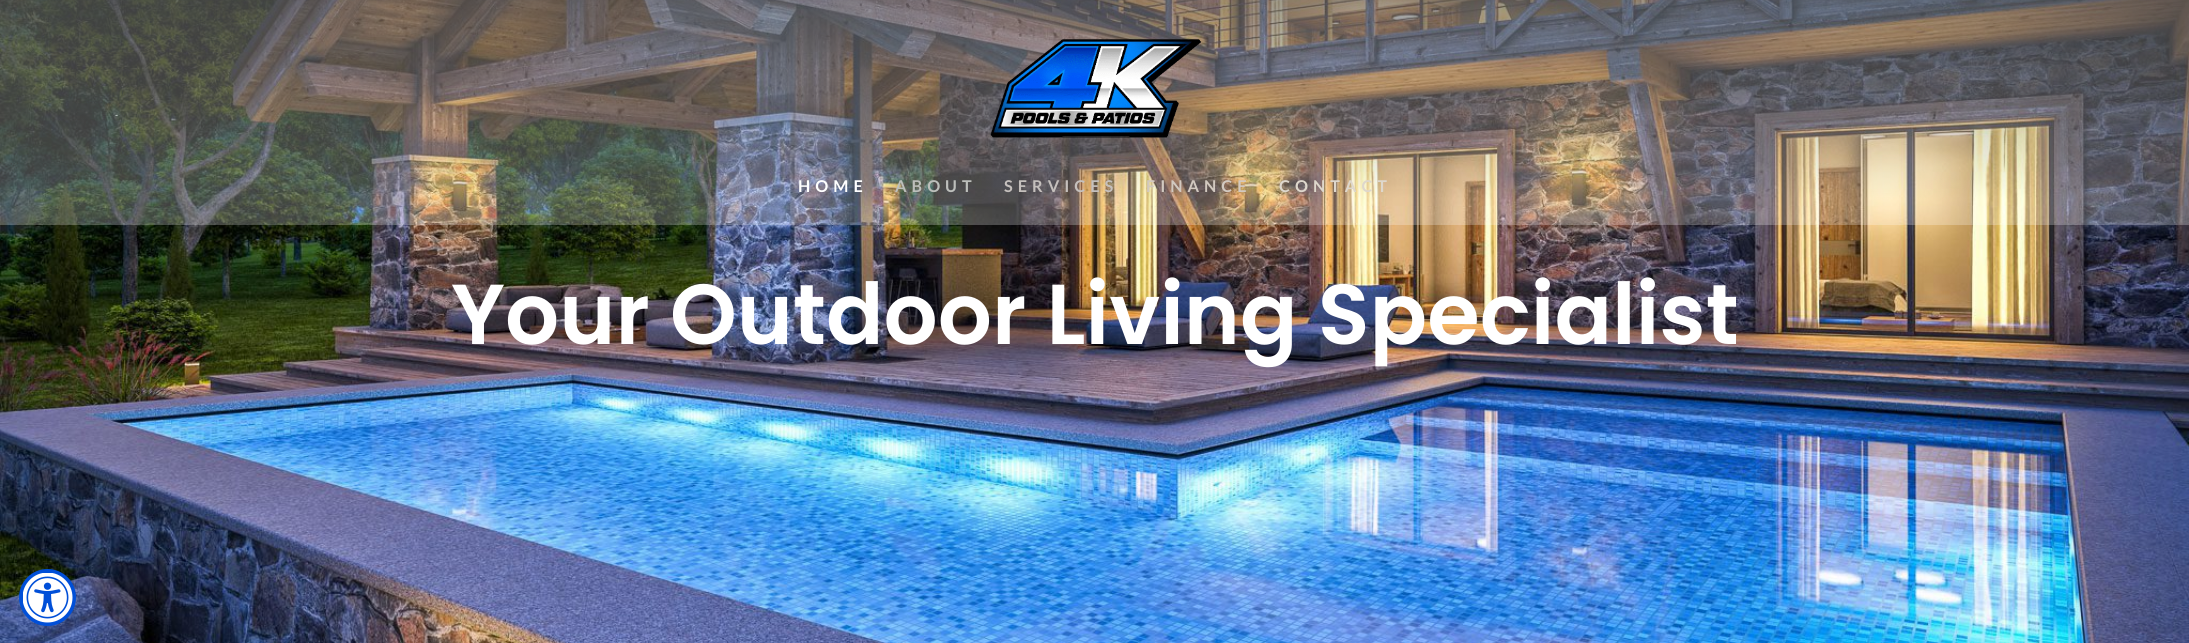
import math
import cairocffi as cairo

surface = cairo.ImageSurface(cairo.FORMAT_RGB24, 2189, 643)
ctx = cairo.Context(surface)
options = cairo.FontOptions()
options.set_hint_metrics(cairo.HINT_METRICS_OFF)
options.set_hint_style(cairo.HINT_STYLE_NONE)
ctx.set_font_options(options)
ctx.set_miter_limit(4)


def rgb(r, g, b):
    ctx.set_source_rgb(r / 255, g / 255, b / 255)


def face(family, size, italic, bold):
    ctx.select_font_face(family, cairo.FONT_SLANT_ITALIC if italic else cairo.FONT_SLANT_NORMAL, cairo.FONT_WEIGHT_BOLD if bold else cairo.FONT_WEIGHT_NORMAL)
    ctx.set_font_size(size)


def label(x, y, s):
    ctx.move_to(x, y)
    ctx.show_text(s)


def tracked(x, y, s, letter, word):
    ctx.move_to(x, y)
    for ch in s:
        ctx.show_text(ch)
        ctx.rel_move_to(letter + word * (ch == ' '), 0)


def rect(x, y, w, h):
    ctx.rectangle(x, y, w, h)
    ctx.fill()


def image(path, x, y, w, h):
    ctx.save()
    ctx.set_source_surface(cairo.ImageSurface.create_from_png(path), x, y)
    ctx.rectangle(x, y, w, h)
    ctx.fill()
    ctx.restore()


rgb(255, 255, 255)
ctx.paint()
image('image1.png', 0, 0, 2189, 643)
ctx.set_source_rgba(1, 1, 1, 0.25)
rect(0, 0, 2189, 225)
image('image0.png', 990, 39, 211, 99)
face('Lato', 16.25, 0, 1)
rgb(255, 255, 255)
tracked(798, 192, 'HOME', 5, 0)
rgb(189, 191, 187)
tracked(895, 192, 'ABOUT', 5, 0)
rgb(197, 192, 189)
tracked(1004, 192, 'SERVICES', 5, 0)
rgb(210, 201, 192)
tracked(1146, 192, 'FINANCE', 5, 0)
rgb(222, 215, 204)
tracked(1279, 192, 'CONTACT', 5, 0)
face('Poppins SemiBold', 85, 0, 0)
rgb(255, 255, 255)
label(451, 344, 'Your Outdoor Living Specialist')
rgb(0, 79, 216)
ctx.new_path()
ctx.arc(47.5, 597.5, 28.5, 0, 2 * math.pi)
ctx.fill()
image('image2.png', 23, 573, 50, 50)
surface.write_to_png('render.png')
